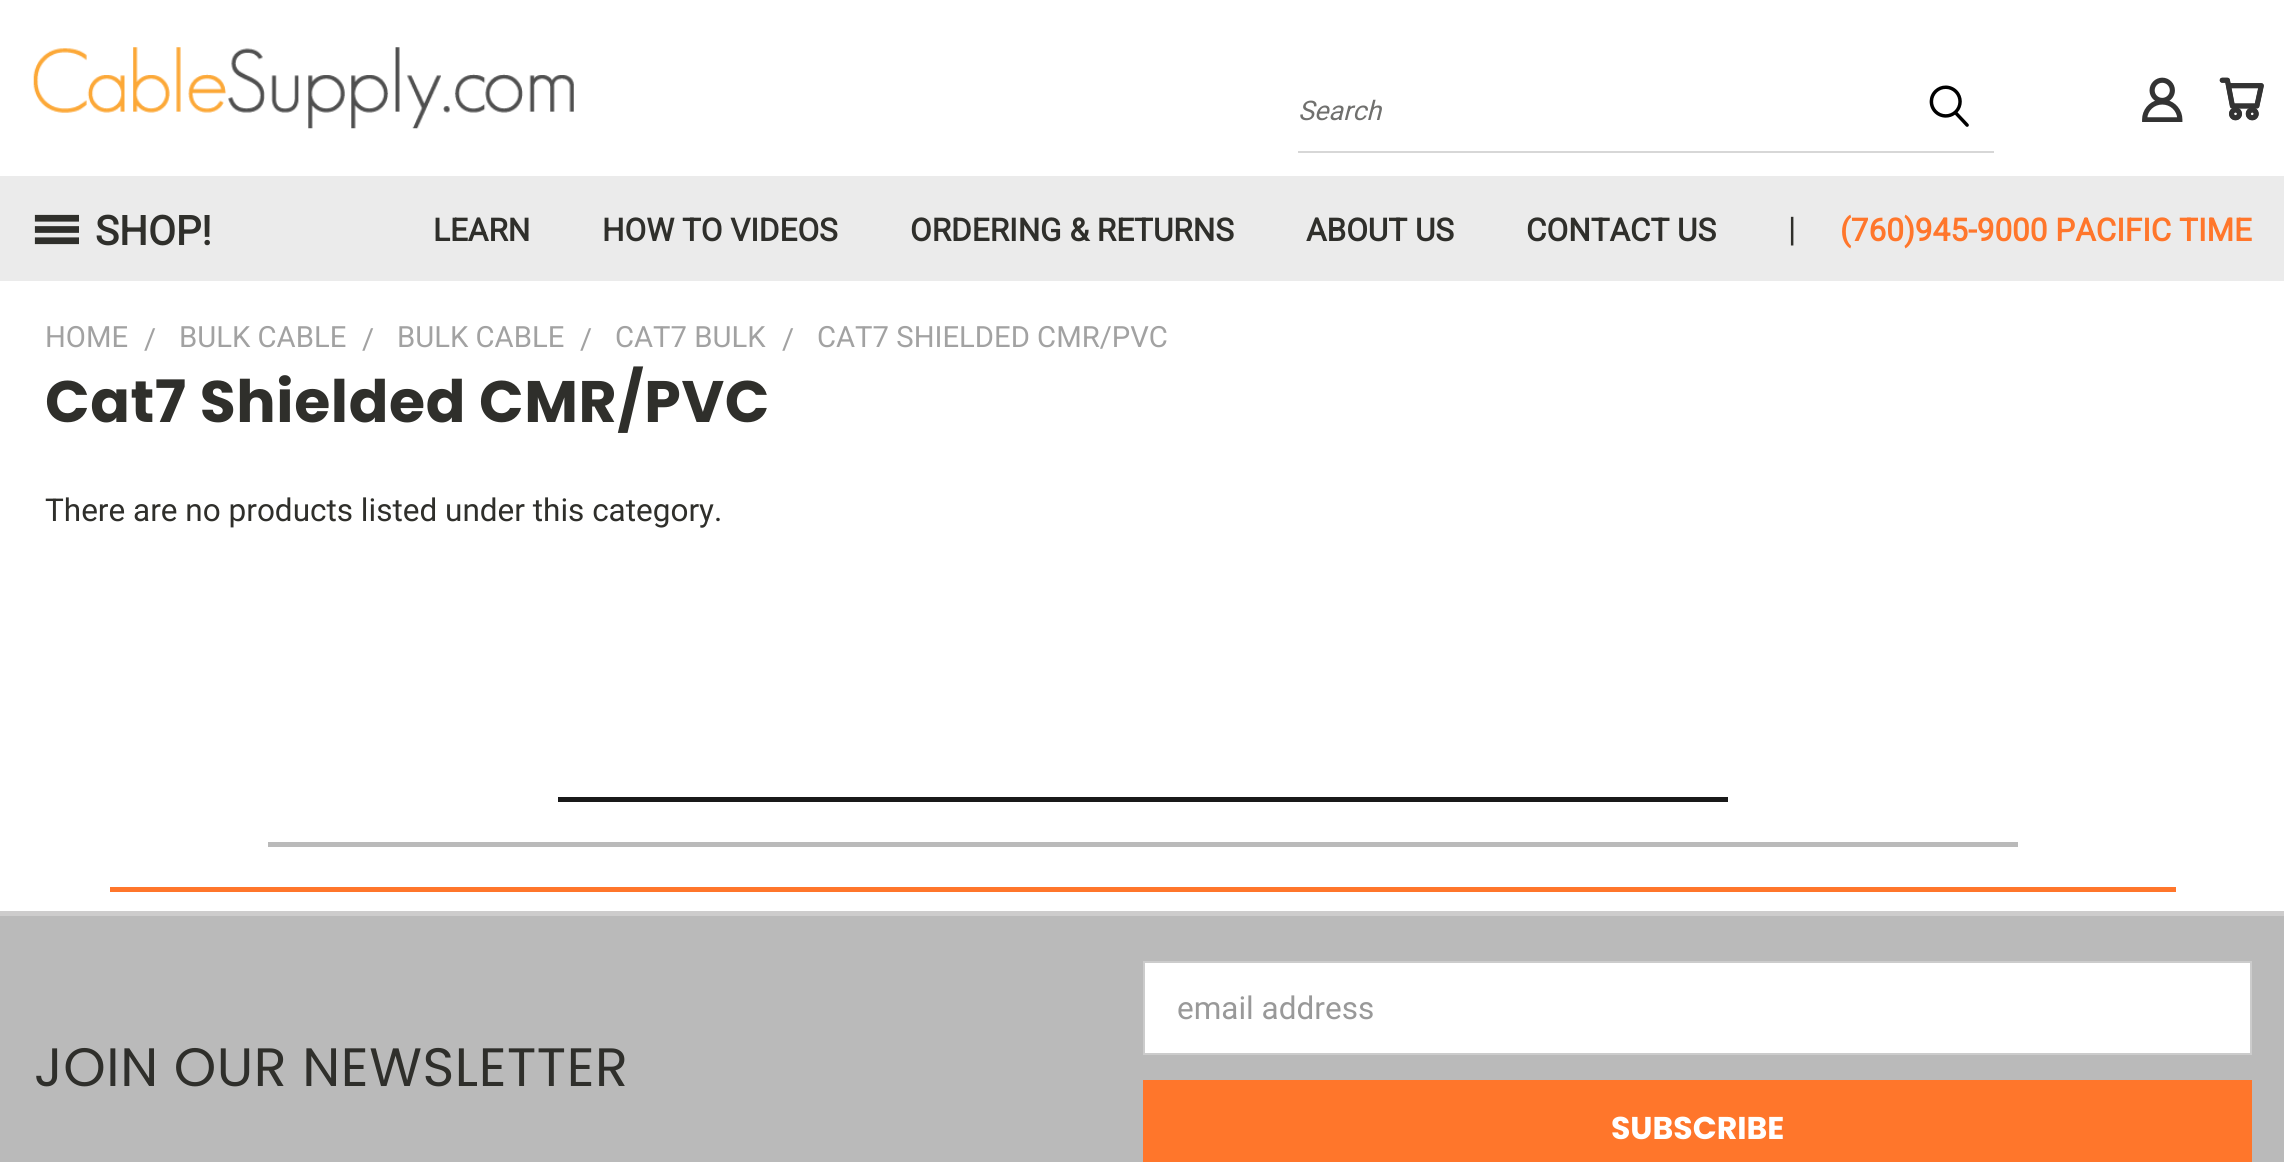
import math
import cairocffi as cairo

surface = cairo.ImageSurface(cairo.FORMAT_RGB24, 2284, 1162)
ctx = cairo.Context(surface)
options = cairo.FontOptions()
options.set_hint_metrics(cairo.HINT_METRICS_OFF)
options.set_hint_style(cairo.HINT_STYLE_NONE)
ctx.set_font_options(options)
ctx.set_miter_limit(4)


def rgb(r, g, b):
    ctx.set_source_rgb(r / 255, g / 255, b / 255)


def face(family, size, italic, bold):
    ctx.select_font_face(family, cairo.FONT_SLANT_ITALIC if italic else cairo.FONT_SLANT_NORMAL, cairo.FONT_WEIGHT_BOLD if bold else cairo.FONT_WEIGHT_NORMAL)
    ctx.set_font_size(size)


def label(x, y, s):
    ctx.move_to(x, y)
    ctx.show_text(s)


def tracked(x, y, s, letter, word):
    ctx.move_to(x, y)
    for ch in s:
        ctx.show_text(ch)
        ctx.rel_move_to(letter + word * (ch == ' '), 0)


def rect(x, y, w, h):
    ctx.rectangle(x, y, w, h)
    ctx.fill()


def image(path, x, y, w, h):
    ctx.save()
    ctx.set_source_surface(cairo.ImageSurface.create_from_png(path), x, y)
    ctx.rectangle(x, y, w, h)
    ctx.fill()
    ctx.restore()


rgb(255, 255, 255)
ctx.paint()
image('image0.png', 33, 47, 541, 82)
rgb(215, 215, 215)
rect(1298, 151, 696, 2)
face('Roboto', 27, 1, 0)
rgb(112, 112, 110)
label(1298, 120, 'Search')
image('image1.png', 1929, 85, 40, 42)
image('image2.png', 2142, 77, 41, 45)
image('image3.png', 2219, 77, 45, 44)
rgb(235, 235, 235)
rect(0, 176, 2284, 105)
image('image4.png', 34, 214, 45, 31)
face('Roboto', 40.5, 0, 1)
rgb(47, 47, 43)
label(95, 245, 'SHOP!')
face('Roboto', 31.5, 0, 1)
label(433, 241, 'LEARN')
label(602, 241, 'HOW TO VIDEOS')
label(910, 241, 'ORDERING & RETURNS')
label(1306, 241, 'ABOUT US')
label(1526, 241, 'CONTACT US')
face('Roboto', 34, 0, 0)
label(1788, 241, '|')
face('Roboto', 31.5, 0, 1)
rgb(255, 118, 43)
label(1840, 241, '(760)945-9000 PACIFIC TIME')
face('Roboto', 29.25, 0, 0)
rgb(162, 162, 162)
label(45, 347, 'HOME')
label(144, 349, '/')
label(179, 347, 'BULK CABLE')
label(362, 349, '/')
label(397, 347, 'BULK CABLE')
label(580, 349, '/')
label(615, 347, 'CAT7 BULK')
label(782, 349, '/')
label(817, 347, 'CAT7 SHIELDED CMR/PVC')
face('Poppins', 58.5, 0, 1)
rgb(47, 47, 43)
tracked(45, 422, 'Cat7 Shielded CMR/PVC', 0.6, 0)
face('Roboto', 31.5, 0, 0)
label(45, 521, 'There are no products listed under this category.')
rgb(25, 25, 25)
rect(558, 797, 1170, 5)
rgb(186, 186, 186)
rect(268, 842, 1750, 5)
rgb(255, 118, 43)
rect(110, 887, 2066, 5)
rgb(186, 186, 186)
rect(0, 916, 2284, 246)
rgb(205, 204, 204)
rect(0, 911, 2284, 5)
face('Poppins', 54, 0, 0)
rgb(47, 47, 43)
tracked(34, 1086, 'JOIN OUR NEWSLETTER', 0.6, 0)
rgb(255, 255, 255)
ctx.rectangle(1144, 962, 1107, 92)
ctx.fill_preserve()
rgb(204, 204, 204)
ctx.stroke()
face('Roboto', 31.5, 0, 0)
rgb(153, 153, 153)
label(1177, 1019, 'email address')
rgb(255, 118, 43)
rect(1143, 1080, 1109, 82)
face('Poppins', 31.5, 0, 1)
rgb(255, 255, 255)
label(1611, 1139, 'SUBSCRIBE')
surface.write_to_png('render.png')
